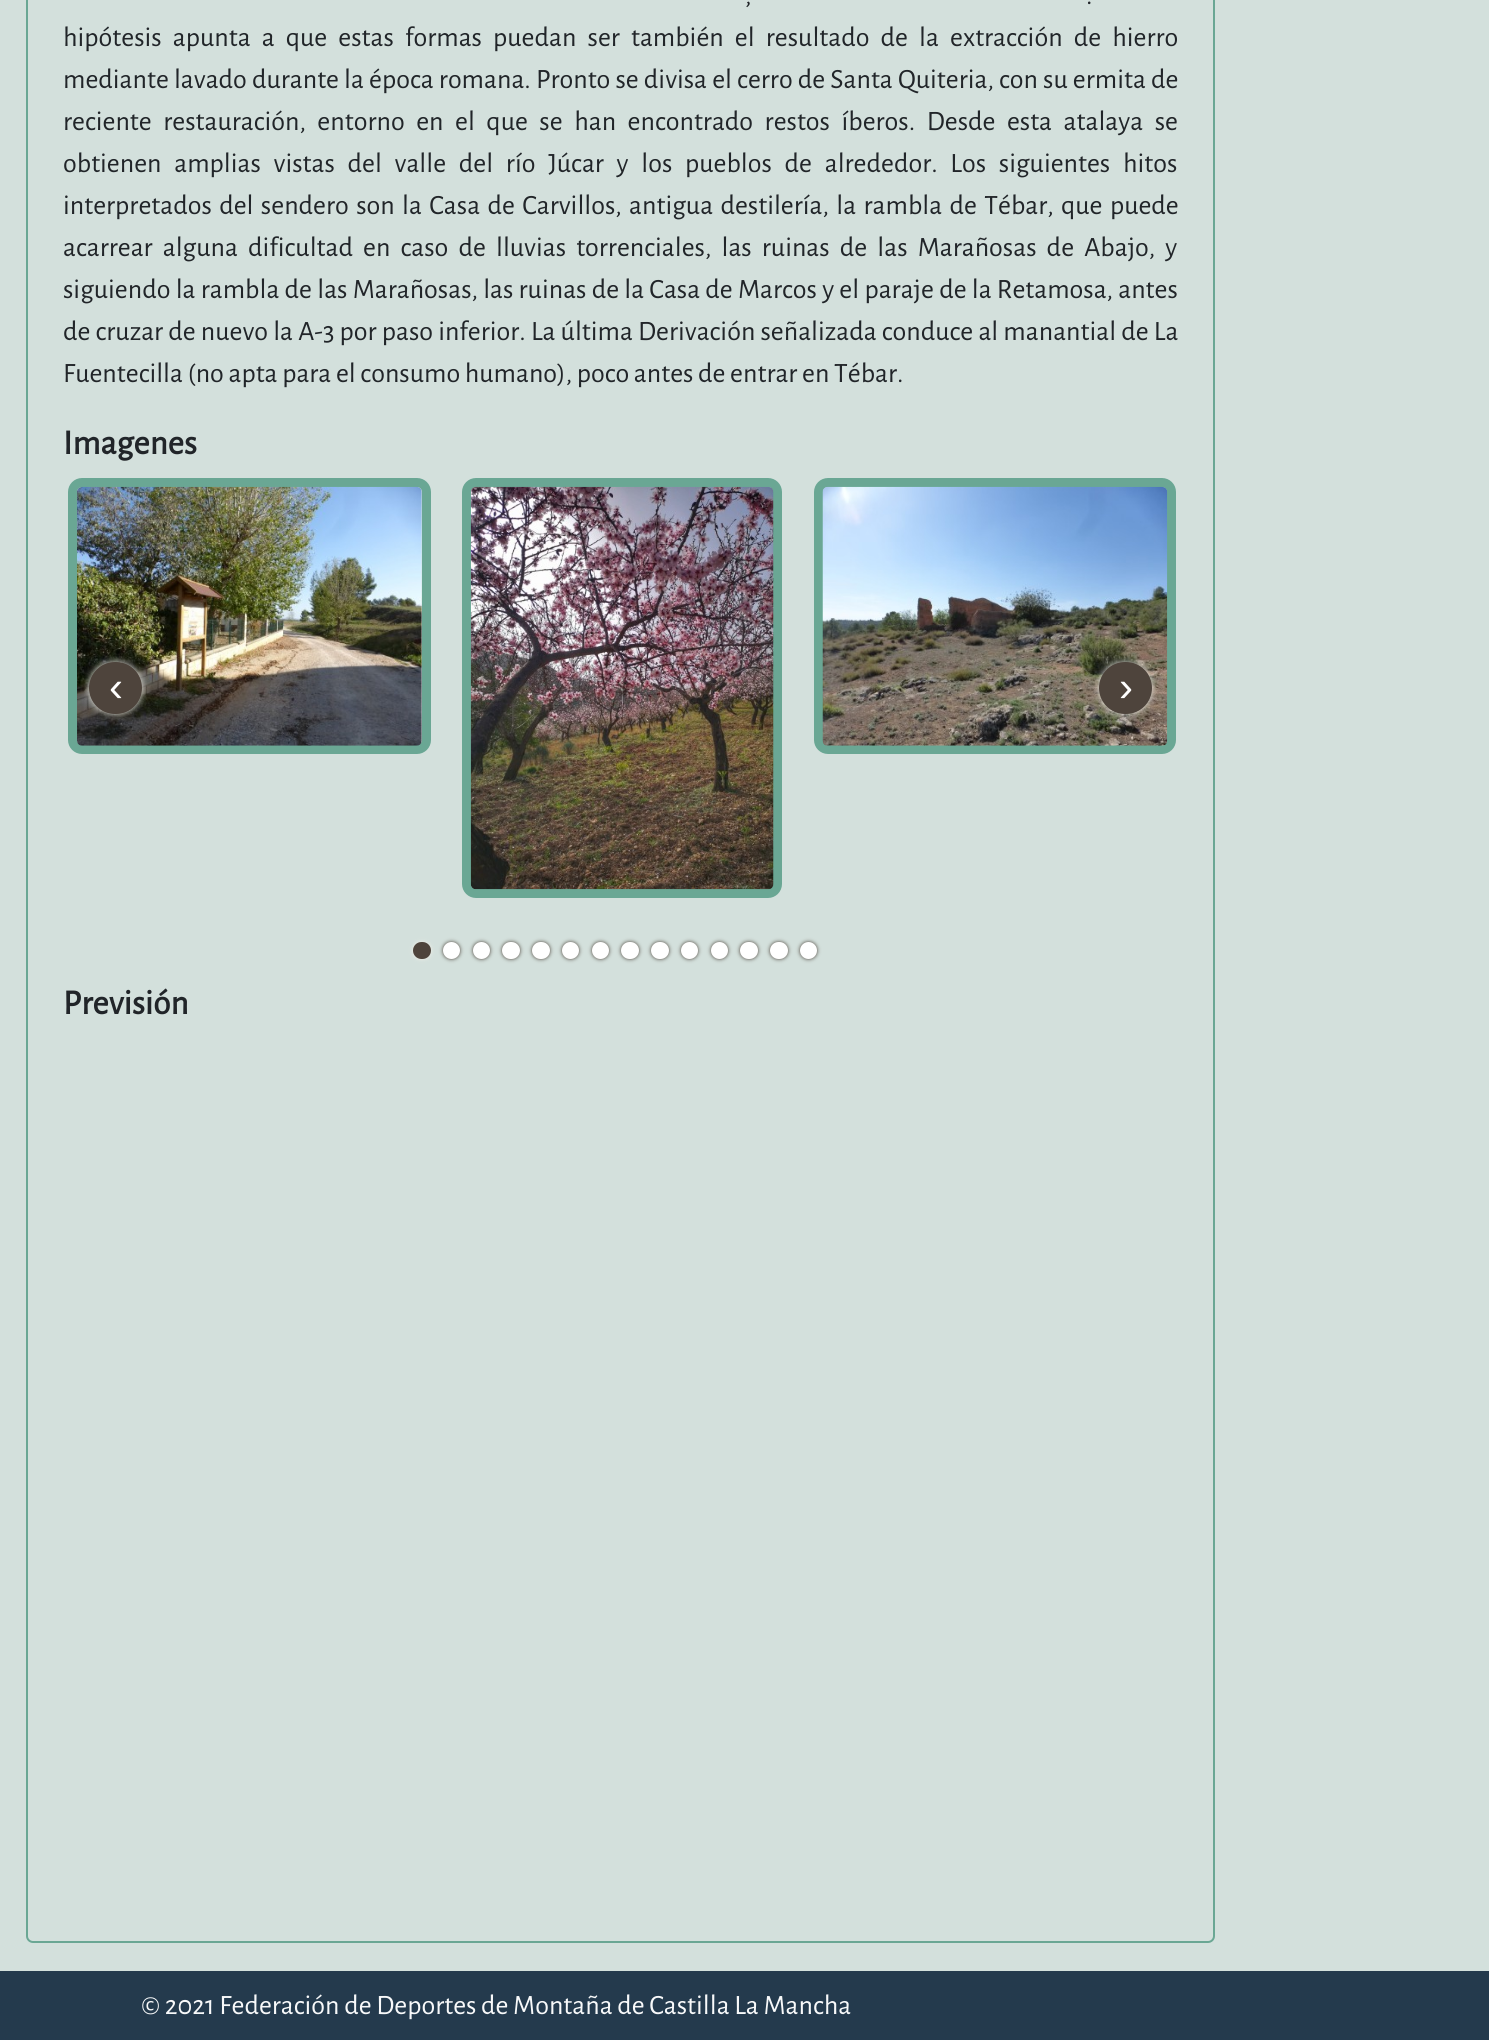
import math
import cairocffi as cairo

surface = cairo.ImageSurface(cairo.FORMAT_RGB24, 1489, 2040)
ctx = cairo.Context(surface)
options = cairo.FontOptions()
options.set_hint_metrics(cairo.HINT_METRICS_OFF)
options.set_hint_style(cairo.HINT_STYLE_NONE)
ctx.set_font_options(options)
ctx.set_miter_limit(4)


def rgb(r, g, b):
    ctx.set_source_rgb(r / 255, g / 255, b / 255)


def face(family, size, italic, bold):
    ctx.select_font_face(family, cairo.FONT_SLANT_ITALIC if italic else cairo.FONT_SLANT_NORMAL, cairo.FONT_WEIGHT_BOLD if bold else cairo.FONT_WEIGHT_NORMAL)
    ctx.set_font_size(size)


def label(x, y, s):
    ctx.move_to(x, y)
    ctx.show_text(s)


def tracked(x, y, s, letter, word):
    ctx.move_to(x, y)
    for ch in s:
        ctx.show_text(ch)
        ctx.rel_move_to(letter + word * (ch == ' '), 0)


def rect(x, y, w, h):
    ctx.rectangle(x, y, w, h)
    ctx.fill()


def rrect(x, y, w, h, r):
    ctx.new_sub_path()
    for i, (u, v) in enumerate([(x + w - r, y + h - r), (x + r, y + h - r), (x + r, y + r), (x + w - r, y + r)]):
        ctx.arc(u, v, r, i * math.pi / 2, (i + 1) * math.pi / 2)
    ctx.close_path()


def soft_shadow(x, y, w, h, r, blur, alpha):
    ctx.push_group_with_content(cairo.CONTENT_ALPHA)
    ctx.set_operator(cairo.OPERATOR_SOURCE)
    for i in range(15, -16, -2):
        e = blur * i / 6
        if min(w, h) + 2 * e > 0:
            ctx.set_source_rgba(0, 0, 0, alpha * math.erfc((i - 1) / 8.5) / 2)
            rrect(x - e, y - e, w + 2 * e, h + 2 * e, max(0, min(r + e + blur * .6, min(w, h) / 2 + e)))
            ctx.fill()
    ctx.mask(ctx.pop_group())


def image(path, x, y, w, h):
    ctx.save()
    ctx.set_source_surface(cairo.ImageSurface.create_from_png(path), x, y)
    ctx.rectangle(x, y, w, h)
    ctx.fill()
    ctx.restore()


rgb(211, 224, 220)
ctx.paint()
rrect(27, -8, 1187, 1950, 6)
rgb(106, 167, 148)
ctx.stroke()
face('Alegreya Sans', 28, 0, 0)
rgb(33, 37, 41)
tracked(745, 4, ',', 0, 2)
tracked(1086, 4, '.', 0, 2)
tracked(63, 46, 'hipótesis apunta a que estas formas puedan ser también el resultado de la extracción de hierro', 0, 6.5)
tracked(63, 88, 'mediante lavado durante la época romana. Pronto se divisa el cerro de Santa Quiteria, con su ermita de', 0, 0.5)
tracked(63, 130, 'reciente restauración, entorno en el que se han encontrado restos íberos. Desde esta atalaya se', 0, 6.9)
tracked(63, 172, 'obtienen amplias vistas del valle del río Júcar y los pueblos de alrededor. Los siguientes hitos', 0, 8.1)
tracked(63, 214, 'interpretados del sendero son la Casa de Carvillos, antigua destilería, la rambla de Tébar, que puede', 0, 2.75)
tracked(63, 256, 'acarrear alguna dificultad en caso de lluvias torrenciales, las ruinas de las Marañosas de Abajo, y', 0, 5.5)
tracked(63, 298, 'siguiendo la rambla de las Marañosas, las ruinas de la Casa de Marcos y el paraje de la Retamosa, antes', 0, 0.6)
tracked(63, 340, 'de cruzar de nuevo la A-3 por paso inferior. La última Derivación señalizada conduce al manantial de La', 0, 0.5)
label(63, 382, 'Fuentecilla (no apta para el consumo humano), poco antes de entrar en Tébar.')
face('Alegreya Sans', 35, 0, 1)
label(63, 454, 'Imagenes')
rrect(72.5, 482.5, 354, 267, 9.5)
rgb(106, 167, 148)
ctx.set_line_width(9)
ctx.stroke()
image('image0.png', 77, 486, 345, 260)
rrect(466.5, 482.5, 311, 411, 9.5)
ctx.stroke()
image('image1.png', 470, 486, 304, 404)
rrect(818.5, 482.5, 353, 267, 9.5)
ctx.stroke()
image('image2.png', 822, 486, 346, 260)
rgb(240, 239, 231)
soft_shadow(89, 662, 53, 52, 26, 3.5, 1)
rgb(78, 68, 60)
rrect(89, 662, 53, 52, 26)
ctx.fill()
face('Liberation Sans', 42, 0, 0)
rgb(255, 255, 255)
label(109, 701, '‹')
rgb(240, 239, 231)
soft_shadow(1099, 662, 53, 52, 26, 3.5, 1)
rgb(78, 68, 60)
rrect(1099, 662, 53, 52, 26)
ctx.fill()
rgb(255, 255, 255)
label(1119, 701, '›')
rgb(240, 239, 231)
soft_shadow(413, 942, 18, 17, 8.5, 2, 1)
rgb(78, 68, 60)
rrect(413, 942, 18, 17, 8.5)
ctx.fill()
rgb(78, 68, 60)
soft_shadow(443, 942, 17, 17, 8.5, 2, 1)
rgb(255, 255, 255)
ctx.arc(451.5, 950.5, 8.5, 0, 2 * math.pi)
ctx.fill()
rgb(78, 68, 60)
soft_shadow(473, 942, 17, 17, 8.5, 2, 1)
rgb(255, 255, 255)
ctx.arc(481.5, 950.5, 8.5, 0, 2 * math.pi)
ctx.fill()
rgb(78, 68, 60)
soft_shadow(502, 942, 18, 17, 8.5, 2, 1)
rgb(255, 255, 255)
rrect(502, 942, 18, 17, 8.5)
ctx.fill()
rgb(78, 68, 60)
soft_shadow(532, 942, 18, 17, 8.5, 2, 1)
rgb(255, 255, 255)
rrect(532, 942, 18, 17, 8.5)
ctx.fill()
rgb(78, 68, 60)
soft_shadow(562, 942, 17, 17, 8.5, 2, 1)
rgb(255, 255, 255)
ctx.arc(570.5, 950.5, 8.5, 0, 2 * math.pi)
ctx.fill()
rgb(78, 68, 60)
soft_shadow(592, 942, 17, 17, 8.5, 2, 1)
rgb(255, 255, 255)
ctx.arc(600.5, 950.5, 8.5, 0, 2 * math.pi)
ctx.fill()
rgb(78, 68, 60)
soft_shadow(621, 942, 18, 17, 8.5, 2, 1)
rgb(255, 255, 255)
rrect(621, 942, 18, 17, 8.5)
ctx.fill()
rgb(78, 68, 60)
soft_shadow(651, 942, 18, 17, 8.5, 2, 1)
rgb(255, 255, 255)
rrect(651, 942, 18, 17, 8.5)
ctx.fill()
rgb(78, 68, 60)
soft_shadow(681, 942, 17, 17, 8.5, 2, 1)
rgb(255, 255, 255)
ctx.arc(689.5, 950.5, 8.5, 0, 2 * math.pi)
ctx.fill()
rgb(78, 68, 60)
soft_shadow(711, 942, 17, 17, 8.5, 2, 1)
rgb(255, 255, 255)
ctx.arc(719.5, 950.5, 8.5, 0, 2 * math.pi)
ctx.fill()
rgb(78, 68, 60)
soft_shadow(740, 942, 18, 17, 8.5, 2, 1)
rgb(255, 255, 255)
rrect(740, 942, 18, 17, 8.5)
ctx.fill()
rgb(78, 68, 60)
soft_shadow(770, 942, 18, 17, 8.5, 2, 1)
rgb(255, 255, 255)
rrect(770, 942, 18, 17, 8.5)
ctx.fill()
rgb(78, 68, 60)
soft_shadow(800, 942, 17, 17, 8.5, 2, 1)
rgb(255, 255, 255)
ctx.arc(808.5, 950.5, 8.5, 0, 2 * math.pi)
ctx.fill()
face('Alegreya Sans', 35, 0, 1)
rgb(33, 37, 41)
label(63, 1014, 'Previsión')
rgb(36, 58, 77)
rect(0, 1971, 1489, 69)
face('Alegreya Sans', 28, 0, 0)
rgb(248, 249, 250)
label(141, 2014, '© 2021 Federación de Deportes de Montaña de Castilla La Mancha')
surface.write_to_png('render.png')
